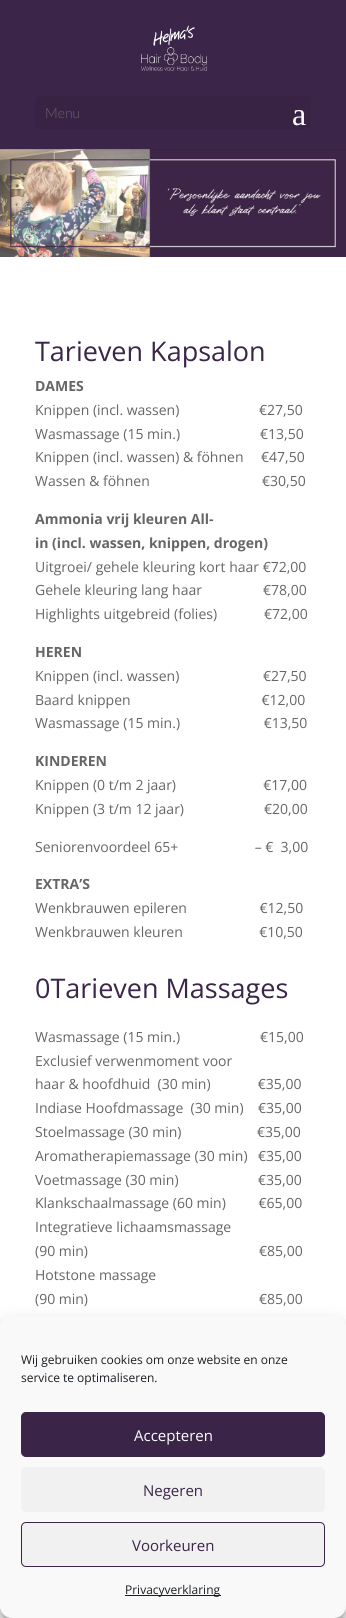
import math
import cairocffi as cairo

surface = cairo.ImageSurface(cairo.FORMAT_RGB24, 346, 1618)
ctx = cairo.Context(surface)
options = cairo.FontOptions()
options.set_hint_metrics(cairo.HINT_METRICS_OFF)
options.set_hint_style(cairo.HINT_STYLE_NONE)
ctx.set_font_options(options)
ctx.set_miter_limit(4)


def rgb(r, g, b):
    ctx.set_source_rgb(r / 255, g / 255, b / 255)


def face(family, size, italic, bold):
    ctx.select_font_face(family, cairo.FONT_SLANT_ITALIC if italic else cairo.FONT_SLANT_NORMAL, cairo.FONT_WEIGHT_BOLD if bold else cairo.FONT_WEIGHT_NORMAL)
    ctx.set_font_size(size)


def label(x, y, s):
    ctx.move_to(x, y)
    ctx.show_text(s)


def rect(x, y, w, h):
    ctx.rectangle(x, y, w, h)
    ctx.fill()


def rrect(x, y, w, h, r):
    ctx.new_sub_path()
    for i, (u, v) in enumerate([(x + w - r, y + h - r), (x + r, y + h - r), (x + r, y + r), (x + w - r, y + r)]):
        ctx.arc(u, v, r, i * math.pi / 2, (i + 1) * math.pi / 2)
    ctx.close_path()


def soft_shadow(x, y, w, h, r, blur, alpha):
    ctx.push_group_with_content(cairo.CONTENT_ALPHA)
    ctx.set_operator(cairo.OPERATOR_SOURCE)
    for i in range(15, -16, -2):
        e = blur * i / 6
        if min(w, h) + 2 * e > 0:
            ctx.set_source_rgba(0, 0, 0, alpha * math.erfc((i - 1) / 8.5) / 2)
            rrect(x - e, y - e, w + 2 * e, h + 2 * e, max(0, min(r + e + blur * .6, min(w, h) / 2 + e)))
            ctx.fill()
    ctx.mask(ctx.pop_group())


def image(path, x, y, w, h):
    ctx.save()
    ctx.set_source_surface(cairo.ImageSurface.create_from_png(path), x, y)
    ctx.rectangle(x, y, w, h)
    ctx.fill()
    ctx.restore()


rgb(255, 255, 255)
ctx.paint()
image('image1.png', 0, 149, 346, 108)
ctx.set_source_rgba(0, 0, 0, 0.1)
rect(0, 149, 346, 1)
rgb(59, 37, 73)
rect(0, 0, 346, 149)
image('image0.png', 141, 25, 66, 46)
rgb(56, 35, 69)
rrect(35, 96, 276, 33, 5)
ctx.fill()
face('Lato Light', 14, 0, 0)
rgb(102, 102, 102)
label(45, 118, 'Menu')
face('Liberation Serif', 32, 0, 0)
rgb(255, 255, 255)
label(292, 125, 'a')
face('Open Sans', 27, 0, 0)
rgb(59, 37, 73)
label(35, 361, 'Tarieven Kapsalon')
face('Open Sans', 14, 0, 1)
rgb(102, 102, 102)
label(35, 391, 'DAMES')
face('Open Sans', 14, 0, 0)
label(35, 415, 'Knippen (incl. wassen)')
label(259, 415, '€27,50')
label(35, 439, 'Wasmassage (15 min.)')
label(260, 439, '€13,50')
label(35, 462, 'Knippen (incl. wassen) & föhnen')
label(261, 462, '€47,50')
label(35, 486, 'Wassen & föhnen')
label(262, 486, '€30,50')
face('Open Sans', 14, 0, 1)
label(35, 524, 'Ammonia vrij kleuren All-')
label(35, 548, 'in (incl. wassen, knippen, drogen)')
face('Open Sans', 14, 0, 0)
label(35, 572, 'Uitgroei/ gehele kleuring kort haar €72,00')
label(35, 595, 'Gehele kleuring lang haar')
label(263, 595, '€78,00')
label(35, 619, 'Highlights uitgebreid (folies)')
label(264, 619, '€72,00')
face('Open Sans', 14, 0, 1)
label(35, 657, 'HEREN')
face('Open Sans', 14, 0, 0)
label(35, 681, 'Knippen (incl. wassen)                       €27,50')
label(35, 705, 'Baard knippen                                    €12,00')
label(35, 728, 'Wasmassage (15 min.)                       €13,50')
face('Open Sans', 14, 0, 1)
label(35, 766, 'KINDEREN')
face('Open Sans', 14, 0, 0)
label(35, 790, 'Knippen (0 t/m 2 jaar)                        €17,00')
label(35, 814, 'Knippen (3 t/m 12 jaar)                      €20,00')
label(35, 852, 'Seniorenvoordeel 65+                     – €  3,00')
face('Open Sans', 14, 0, 1)
label(35, 889, 'EXTRA’S')
face('Open Sans', 14, 0, 0)
label(35, 913, 'Wenkbrauwen epileren                    €12,50')
label(35, 937, 'Wenkbrauwen kleuren                     €10,50')
face('Open Sans', 27, 0, 0)
rgb(59, 37, 73)
label(35, 998, '0Tarieven Massages')
face('Open Sans', 14, 0, 0)
rgb(102, 102, 102)
label(35, 1042, 'Wasmassage (15 min.)')
label(260, 1042, '€15,00')
label(35, 1066, 'Exclusief verwenmoment voor')
label(35, 1089, 'haar & hoofdhuid  (30 min)             €35,00')
label(35, 1113, 'Indiase Hoofdmassage  (30 min)')
label(258, 1113, '€35,00')
label(35, 1137, 'Stoelmassage (30 min)')
label(257, 1137, '€35,00')
label(35, 1161, 'Aromatherapiemassage (30 min)')
label(258, 1161, '€35,00')
label(35, 1185, 'Voetmassage (30 min)')
label(258, 1185, '€35,00')
label(35, 1208, 'Klankschaalmassage (60 min)         €65,00')
label(35, 1232, 'Integratieve lichaamsmassage')
label(35, 1256, '(90 min)')
label(259, 1256, '€85,00')
label(35, 1280, 'Hotstone massage')
label(35, 1304, '(90 min)')
label(259, 1304, '€85,00')
rgb(0, 0, 0)
soft_shadow(0, 1321, 346, 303, 12, 3, 0.23)
soft_shadow(0, 1325, 346, 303, 12, 10, 0.19)
rgb(249, 249, 249)
rrect(0.5, 1315.5, 345, 302, 11.5)
ctx.fill_preserve()
ctx.set_line_width(1)
ctx.stroke()
face('Open Sans', 12, 0, 0)
rgb(25, 30, 35)
label(21, 1364, 'Wij gebruiken cookies om onze website en onze')
label(21, 1382, 'service te optimaliseren.')
rgb(58, 36, 71)
rrect(21.5, 1412.5, 303, 44, 4.5)
ctx.fill_preserve()
ctx.stroke()
face('Open Sans', 15, 0, 0)
rgb(255, 255, 255)
label(134, 1441, 'Accepteren')
rgb(241, 241, 241)
rrect(21, 1467, 304, 45, 5)
ctx.fill()
rgb(59, 37, 73)
label(143, 1496, 'Negeren')
rgb(241, 241, 241)
rrect(21.5, 1522.5, 303, 44, 4.5)
ctx.fill_preserve()
rgb(58, 36, 71)
ctx.stroke()
rgb(59, 37, 73)
label(132, 1551, 'Voorkeuren')
rgb(25, 30, 35)
rect(125, 1595, 96, 1)
face('Open Sans', 12, 0, 0)
label(125, 1594, 'Privacyverklaring')
surface.write_to_png('render.png')
